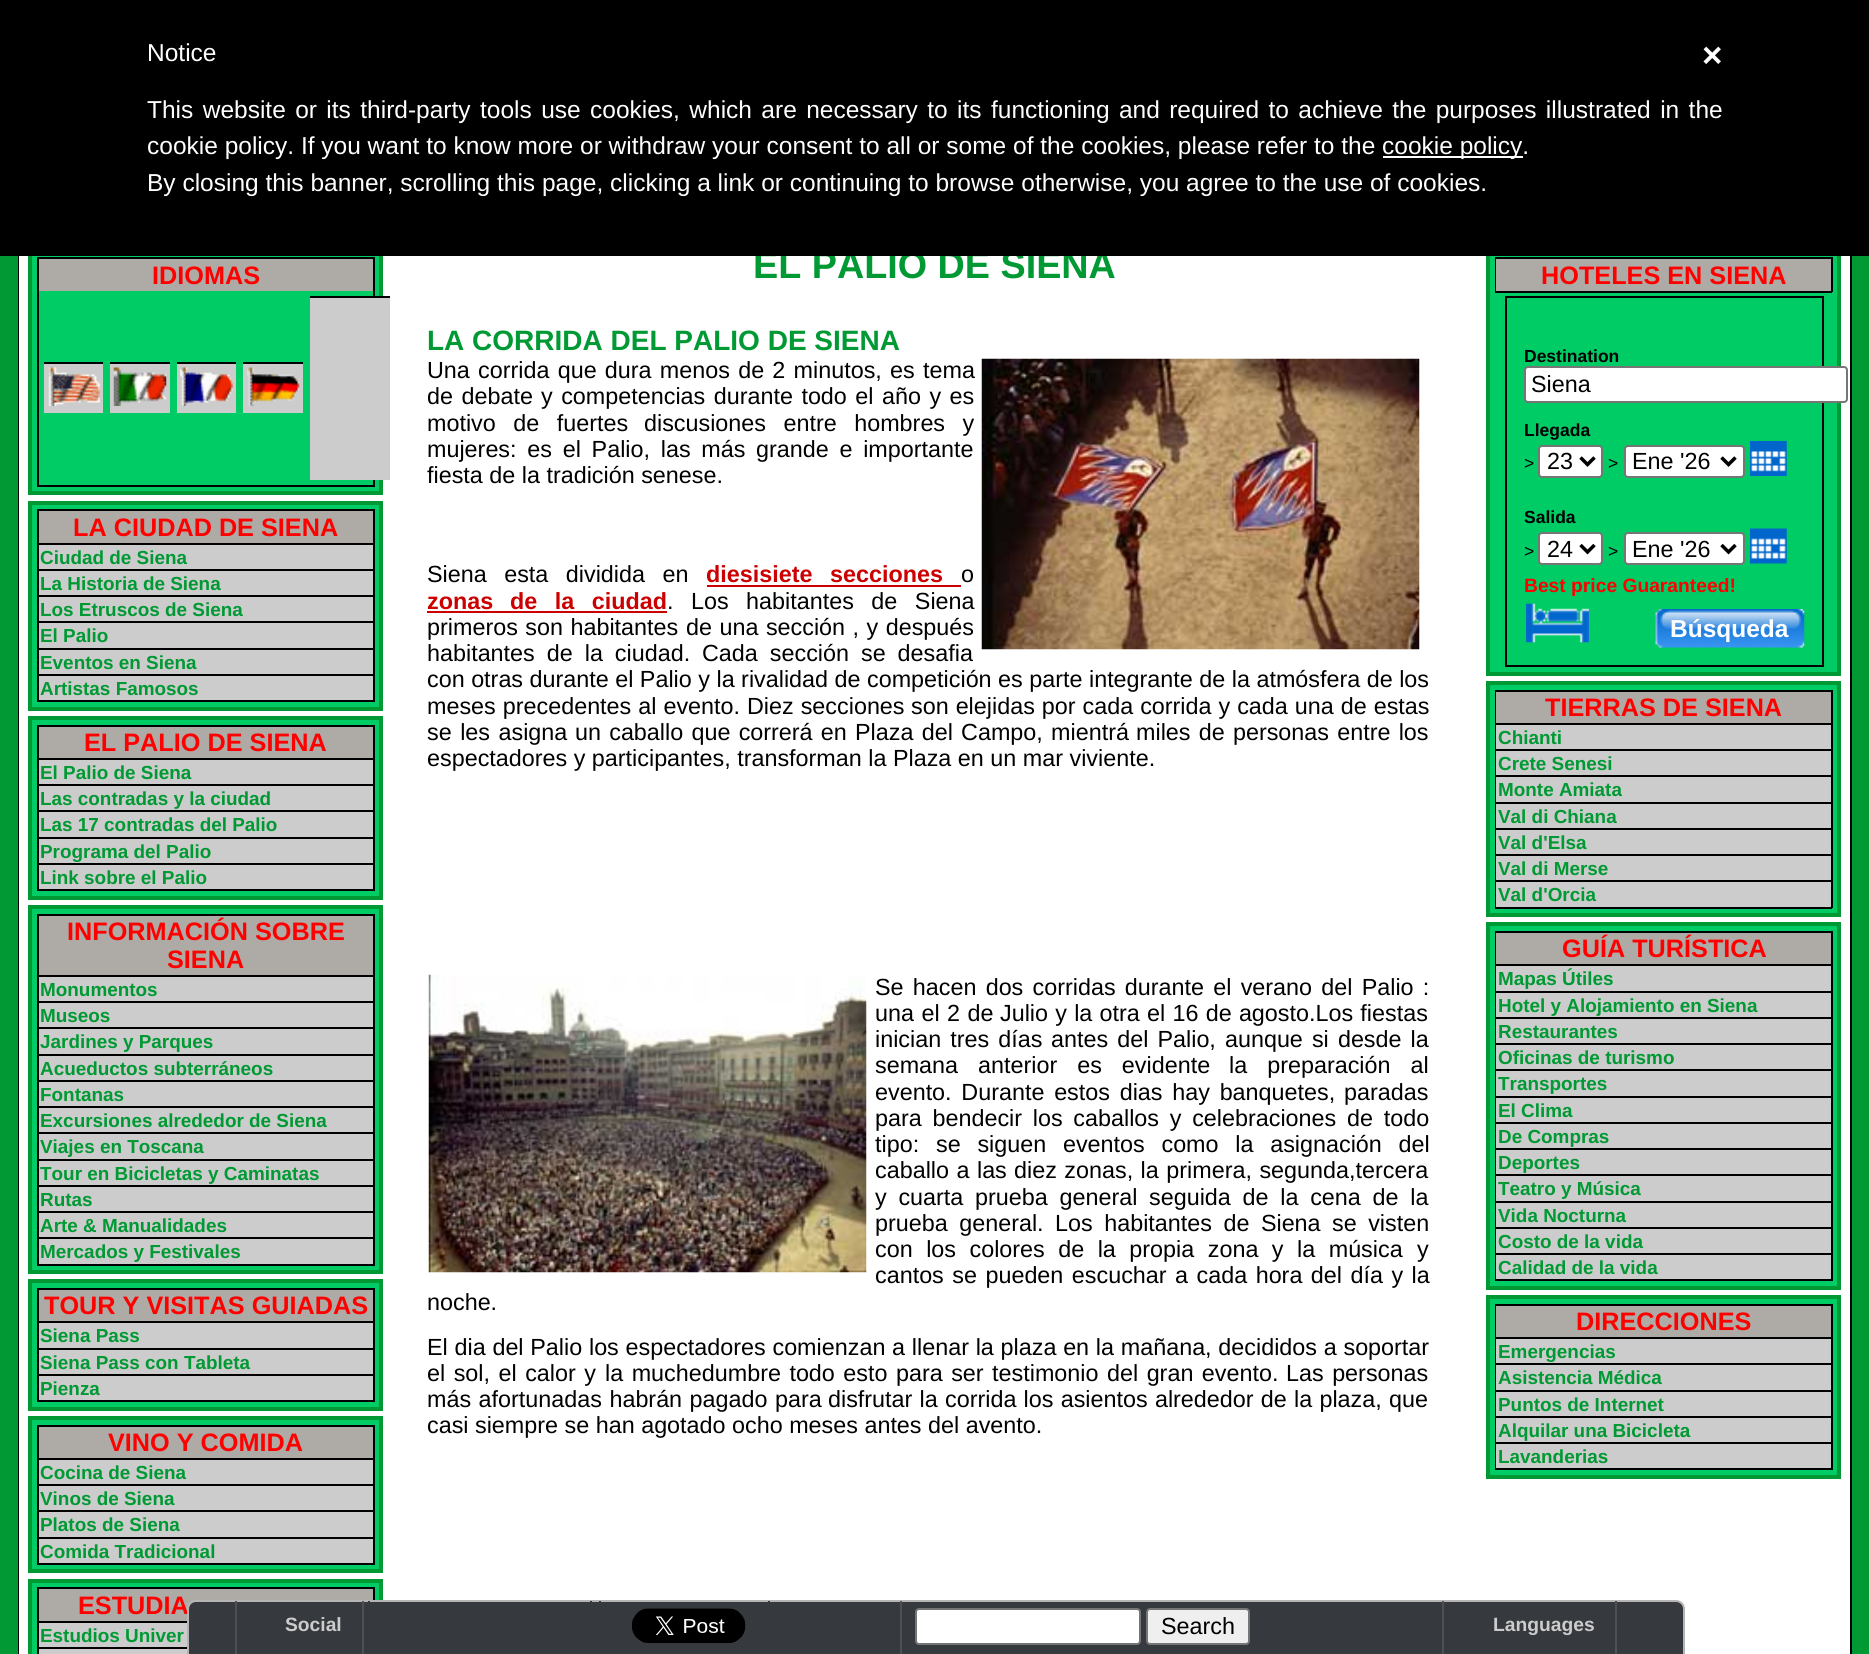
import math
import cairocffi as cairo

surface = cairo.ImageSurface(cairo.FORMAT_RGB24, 1869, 1654)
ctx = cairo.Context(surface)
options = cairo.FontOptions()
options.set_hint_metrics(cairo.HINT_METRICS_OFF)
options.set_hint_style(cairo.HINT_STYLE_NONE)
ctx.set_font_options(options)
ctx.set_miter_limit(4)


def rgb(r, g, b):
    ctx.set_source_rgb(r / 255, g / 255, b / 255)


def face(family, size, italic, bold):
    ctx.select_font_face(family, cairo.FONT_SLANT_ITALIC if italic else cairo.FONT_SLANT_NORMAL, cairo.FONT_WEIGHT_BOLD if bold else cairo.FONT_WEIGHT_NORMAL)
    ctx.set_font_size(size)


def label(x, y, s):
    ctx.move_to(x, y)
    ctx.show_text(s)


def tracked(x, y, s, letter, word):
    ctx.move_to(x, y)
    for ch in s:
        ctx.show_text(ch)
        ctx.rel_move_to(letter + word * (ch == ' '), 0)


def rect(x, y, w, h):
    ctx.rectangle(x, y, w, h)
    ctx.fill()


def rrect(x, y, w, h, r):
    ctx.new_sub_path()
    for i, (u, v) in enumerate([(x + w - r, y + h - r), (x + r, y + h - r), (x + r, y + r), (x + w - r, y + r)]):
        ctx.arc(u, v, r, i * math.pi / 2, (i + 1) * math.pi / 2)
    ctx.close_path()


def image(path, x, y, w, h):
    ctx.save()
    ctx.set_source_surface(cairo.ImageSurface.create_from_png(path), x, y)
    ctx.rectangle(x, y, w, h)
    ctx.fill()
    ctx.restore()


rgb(0, 153, 51)
ctx.paint()
ctx.rectangle(19, 26, 1832, 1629)
rgb(0, 0, 0)
ctx.stroke()
rgb(255, 255, 255)
rect(19, 256, 1831, 1398)
rgb(0, 204, 102)
rect(32, 256, 347, 235)
ctx.rectangle(30, 251, 351, 242)
rgb(0, 153, 51)
ctx.set_line_width(4)
ctx.stroke()
face('Liberation Sans', 37.75, 0, 1)
label(753, 278, 'EL PALIO DE SIENA')
rgb(0, 204, 102)
rect(1490, 256, 347, 416)
ctx.rectangle(1488, 251, 351, 423)
rgb(0, 153, 51)
ctx.stroke()
rgb(0, 0, 0)
rect(0, 0, 1869, 256)
face('Liberation Sans', 24.5, 0, 0)
rgb(255, 255, 255)
label(147, 61, 'Notice')
tracked(147, 118, 'This website or its third-party tools use cookies, which are necessary to its functioning and required to achieve the purposes illustrated in the', 0, 2.6)
label(147, 154, 'cookie policy. If you want to know more or withdraw your consent to all or some of the cookies, please refer to the')
rect(1383, 156, 140, 2)
label(1382, 154, 'cookie policy.')
label(147, 191, 'By closing this banner, scrolling this page, clicking a link or continuing to browse otherwise, you agree to the use of cookies.')
face('Liberation Sans', 35, 0, 1)
label(1702, 67, '×')
rgb(0, 0, 0)
rect(373, 257, 2, 230)
rect(37, 485, 338, 2)
rect(37, 257, 2, 230)
rgb(174, 171, 166)
rect(39, 259, 334, 32)
rgb(0, 0, 0)
rect(39, 257, 334, 2)
face('Liberation Sans', 25.25, 0, 1)
rgb(255, 0, 0)
label(152, 284, 'IDIOMAS')
rgb(204, 204, 204)
rect(44, 364, 59, 49)
rgb(0, 0, 0)
rect(44, 362, 59, 2)
image('image0.png', 48, 367, 52, 39)
rgb(204, 204, 204)
rect(110, 364, 60, 49)
rgb(0, 0, 0)
rect(110, 362, 60, 2)
image('image1.png', 113, 367, 54, 39)
rgb(204, 204, 204)
rect(177, 364, 59, 49)
rgb(0, 0, 0)
rect(177, 362, 59, 2)
image('image2.png', 180, 367, 53, 39)
rgb(204, 204, 204)
rect(243, 364, 60, 49)
rgb(0, 0, 0)
rect(243, 362, 60, 2)
image('image3.png', 247, 367, 53, 39)
rgb(204, 204, 204)
rect(310, 298, 80, 182)
rgb(0, 0, 0)
rect(310, 296, 80, 2)
rgb(0, 204, 102)
ctx.rectangle(30, 503, 351, 206)
ctx.fill_preserve()
rgb(0, 153, 51)
ctx.stroke()
rgb(0, 0, 0)
rect(373, 509, 2, 193)
rect(37, 700, 338, 2)
rect(37, 509, 2, 193)
rgb(174, 171, 166)
rect(39, 511, 334, 32)
rgb(0, 0, 0)
rect(39, 509, 334, 2)
rgb(255, 0, 0)
label(73, 536, 'LA CIUDAD DE SIENA')
rgb(204, 204, 204)
rect(39, 545, 334, 24)
rgb(0, 0, 0)
rect(39, 543, 334, 2)
face('Liberation Sans', 18.9, 0, 1)
rgb(0, 153, 51)
label(40, 564, 'Ciudad de Siena')
rgb(204, 204, 204)
rect(39, 571, 334, 24)
rgb(0, 0, 0)
rect(39, 569, 334, 2)
rgb(0, 153, 51)
label(40, 590, 'La Historia de Siena')
rgb(204, 204, 204)
rect(39, 597, 334, 24)
rgb(0, 0, 0)
rect(39, 595, 334, 2)
rgb(0, 153, 51)
label(40, 616, 'Los Etruscos de Siena')
rgb(204, 204, 204)
rect(39, 623, 334, 25)
rgb(0, 0, 0)
rect(39, 621, 334, 2)
rgb(0, 153, 51)
label(40, 642, 'El Palio')
rgb(204, 204, 204)
rect(39, 650, 334, 24)
rgb(0, 0, 0)
rect(39, 648, 334, 2)
rgb(0, 153, 51)
label(40, 669, 'Eventos en Siena')
rgb(204, 204, 204)
rect(39, 676, 334, 24)
rgb(0, 0, 0)
rect(39, 674, 334, 2)
rgb(0, 153, 51)
label(40, 695, 'Artistas Famosos')
rgb(0, 204, 102)
ctx.rectangle(30, 718, 351, 180)
ctx.fill_preserve()
rgb(0, 153, 51)
ctx.stroke()
rgb(0, 0, 0)
rect(373, 725, 2, 166)
rect(37, 889, 338, 2)
rect(37, 725, 2, 166)
rgb(174, 171, 166)
rect(39, 727, 334, 31)
rgb(0, 0, 0)
rect(39, 725, 334, 2)
face('Liberation Sans', 25.25, 0, 1)
rgb(255, 0, 0)
label(84, 751, 'EL PALIO DE SIENA')
rgb(204, 204, 204)
rect(39, 760, 334, 24)
rgb(0, 0, 0)
rect(39, 758, 334, 2)
face('Liberation Sans', 18.9, 0, 1)
rgb(0, 153, 51)
label(40, 779, 'El Palio de Siena')
rgb(204, 204, 204)
rect(39, 786, 334, 24)
rgb(0, 0, 0)
rect(39, 784, 334, 2)
rgb(0, 153, 51)
label(40, 805, 'Las contradas y la ciudad')
rgb(204, 204, 204)
rect(39, 812, 334, 25)
rgb(0, 0, 0)
rect(39, 810, 334, 2)
rgb(0, 153, 51)
label(40, 831, 'Las 17 contradas del Palio')
rgb(204, 204, 204)
rect(39, 839, 334, 24)
rgb(0, 0, 0)
rect(39, 837, 334, 2)
rgb(0, 153, 51)
label(40, 858, 'Programa del Palio')
rgb(204, 204, 204)
rect(39, 865, 334, 24)
rgb(0, 0, 0)
rect(39, 863, 334, 2)
rgb(0, 153, 51)
label(40, 884, 'Link sobre el Palio')
rgb(0, 204, 102)
ctx.rectangle(30, 907, 351, 365)
ctx.fill_preserve()
rgb(0, 153, 51)
ctx.stroke()
rgb(0, 0, 0)
rect(373, 914, 2, 351)
rect(37, 1264, 338, 2)
rect(37, 914, 2, 351)
rgb(174, 171, 166)
rect(39, 916, 334, 59)
rgb(0, 0, 0)
rect(39, 914, 334, 2)
face('Liberation Sans', 25.25, 0, 1)
rgb(255, 0, 0)
label(67, 940, 'INFORMACIÓN SOBRE')
label(167, 968, 'SIENA')
rgb(204, 204, 204)
rect(39, 977, 334, 24)
rgb(0, 0, 0)
rect(39, 975, 334, 2)
face('Liberation Sans', 18.9, 0, 1)
rgb(0, 153, 51)
label(40, 996, 'Monumentos')
rgb(204, 204, 204)
rect(39, 1003, 334, 24)
rgb(0, 0, 0)
rect(39, 1001, 334, 2)
rgb(0, 153, 51)
label(40, 1022, 'Museos')
rgb(204, 204, 204)
rect(39, 1029, 334, 25)
rgb(0, 0, 0)
rect(39, 1027, 334, 2)
rgb(0, 153, 51)
label(40, 1048, 'Jardines y Parques')
rgb(204, 204, 204)
rect(39, 1056, 334, 24)
rgb(0, 0, 0)
rect(39, 1054, 334, 2)
rgb(0, 153, 51)
label(40, 1075, 'Acueductos subterráneos')
rgb(204, 204, 204)
rect(39, 1082, 334, 24)
rgb(0, 0, 0)
rect(39, 1080, 334, 2)
rgb(0, 153, 51)
label(40, 1101, 'Fontanas')
rgb(204, 204, 204)
rect(39, 1108, 334, 24)
rgb(0, 0, 0)
rect(39, 1106, 334, 2)
rgb(0, 153, 51)
label(40, 1127, 'Excursiones alrededor de Siena')
rgb(204, 204, 204)
rect(39, 1134, 334, 25)
rgb(0, 0, 0)
rect(39, 1132, 334, 2)
rgb(0, 153, 51)
label(40, 1153, 'Viajes en Toscana')
rgb(204, 204, 204)
rect(39, 1161, 334, 24)
rgb(0, 0, 0)
rect(39, 1159, 334, 2)
rgb(0, 153, 51)
label(40, 1180, 'Tour en Bicicletas y Caminatas')
rgb(204, 204, 204)
rect(39, 1187, 334, 24)
rgb(0, 0, 0)
rect(39, 1185, 334, 2)
rgb(0, 153, 51)
label(40, 1206, 'Rutas')
rgb(204, 204, 204)
rect(39, 1213, 334, 24)
rgb(0, 0, 0)
rect(39, 1211, 334, 2)
rgb(0, 153, 51)
label(40, 1232, 'Arte & Manualidades')
rgb(204, 204, 204)
rect(39, 1239, 334, 25)
rgb(0, 0, 0)
rect(39, 1237, 334, 2)
rgb(0, 153, 51)
label(40, 1258, 'Mercados y Festivales')
rgb(0, 204, 102)
ctx.rectangle(30, 1281, 351, 128)
ctx.fill_preserve()
rgb(0, 153, 51)
ctx.stroke()
rgb(0, 0, 0)
rect(373, 1288, 2, 114)
rect(37, 1400, 338, 2)
rect(37, 1288, 2, 114)
rgb(174, 171, 166)
rect(39, 1290, 334, 31)
rgb(0, 0, 0)
rect(39, 1288, 334, 2)
face('Liberation Sans', 25.25, 0, 1)
rgb(255, 0, 0)
label(44, 1314, 'TOUR Y VISITAS GUIADAS')
rgb(204, 204, 204)
rect(39, 1323, 334, 25)
rgb(0, 0, 0)
rect(39, 1321, 334, 2)
face('Liberation Sans', 18.9, 0, 1)
rgb(0, 153, 51)
label(40, 1342, 'Siena Pass')
rgb(204, 204, 204)
rect(39, 1350, 334, 24)
rgb(0, 0, 0)
rect(39, 1348, 334, 2)
rgb(0, 153, 51)
label(40, 1369, 'Siena Pass con Tableta')
rgb(204, 204, 204)
rect(39, 1376, 334, 24)
rgb(0, 0, 0)
rect(39, 1374, 334, 2)
rgb(0, 153, 51)
label(40, 1395, 'Pienza')
rgb(0, 204, 102)
ctx.rectangle(30, 1418, 351, 153)
ctx.fill_preserve()
rgb(0, 153, 51)
ctx.stroke()
rgb(0, 0, 0)
rect(373, 1425, 2, 140)
rect(37, 1563, 338, 2)
rect(37, 1425, 2, 140)
rgb(174, 171, 166)
rect(39, 1427, 334, 31)
rgb(0, 0, 0)
rect(39, 1425, 334, 2)
face('Liberation Sans', 25.25, 0, 1)
rgb(255, 0, 0)
label(108, 1451, 'VINO Y COMIDA')
rgb(204, 204, 204)
rect(39, 1460, 334, 24)
rgb(0, 0, 0)
rect(39, 1458, 334, 2)
face('Liberation Sans', 18.9, 0, 1)
rgb(0, 153, 51)
label(40, 1479, 'Cocina de Siena')
rgb(204, 204, 204)
rect(39, 1486, 334, 24)
rgb(0, 0, 0)
rect(39, 1484, 334, 2)
rgb(0, 153, 51)
label(40, 1505, 'Vinos de Siena')
rgb(204, 204, 204)
rect(39, 1512, 334, 25)
rgb(0, 0, 0)
rect(39, 1510, 334, 2)
rgb(0, 153, 51)
label(40, 1531, 'Platos de Siena')
rgb(204, 204, 204)
rect(39, 1539, 334, 24)
rgb(0, 0, 0)
rect(39, 1537, 334, 2)
rgb(0, 153, 51)
label(40, 1558, 'Comida Tradicional')
rgb(0, 204, 102)
ctx.rectangle(30, 1581, 351, 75)
ctx.fill_preserve()
rgb(0, 153, 51)
ctx.stroke()
rgb(0, 0, 0)
rect(373, 1587, 2, 13)
rect(37, 1587, 2, 67)
rgb(174, 171, 166)
rect(39, 1589, 334, 32)
rgb(0, 0, 0)
rect(39, 1587, 334, 2)
face('Liberation Sans', 25.25, 0, 1)
rgb(255, 0, 0)
label(78, 1614, 'ESTUDIA')
rgb(204, 204, 204)
rect(39, 1623, 148, 24)
rgb(0, 0, 0)
rect(39, 1621, 148, 2)
face('Liberation Sans', 18.9, 0, 1)
rgb(0, 153, 51)
label(40, 1642, 'Estudios Univer')
rgb(204, 204, 204)
rect(39, 1649, 148, 5)
rgb(0, 0, 0)
rect(39, 1647, 148, 2)
face('Liberation Sans', 28, 0, 1)
rgb(0, 153, 51)
label(427, 350, 'LA CORRIDA DEL PALIO DE SIENA')
face('Liberation Sans', 23.35, 0, 0)
rgb(0, 0, 0)
tracked(427, 378, 'Una corrida que dura menos de 2 minutos, es tema', 0, 1.75)
image('image4.png', 981, 358, 439, 292)
tracked(427, 404, 'de debate', 0, 2)
tracked(541, 404, 'y competencias durante todo el año y es', 0, 2)
tracked(427, 431, 'motivo de fuertes', 0, 11)
tracked(644, 431, 'discusiones entre hombres y', 0, 11)
tracked(427, 457, 'mujeres: es el Palio, las más', 0, 4.25)
tracked(756, 457, 'grande e importante', 0, 4.25)
label(427, 483, 'fiesta de la tradición senese.')
tracked(427, 582, 'Siena esta dividida en', 0, 11)
face('Liberation Sans', 23.35, 0, 1)
rgb(204, 0, 0)
label(706, 582, 'diesisiete')
rect(707, 585, 254, 2)
label(830, 582, 'secciones')
face('Liberation Sans', 23.35, 0, 0)
rgb(0, 0, 0)
label(961, 582, 'o')
face('Liberation Sans', 23.35, 0, 1)
rgb(204, 0, 0)
label(427, 609, 'zonas')
rect(427, 611, 240, 2)
tracked(510, 609, 'de la ciudad', 0, 11)
face('Liberation Sans', 23.35, 0, 0)
rgb(0, 0, 0)
tracked(667, 609, '. Los habitantes de Siena', 0, 11)
tracked(427, 635, 'primeros son habitantes', 0, 1)
tracked(686, 635, 'de una sección , y después', 0, 1)
tracked(427, 661, 'habitantes de la ciudad.', 0, 5.5)
tracked(702, 661, 'Cada sección se desafia', 0, 5.5)
label(427, 687, 'con otras durante el Palio y la rivalidad de competición es parte integrante de la atmósfera de los')
tracked(427, 714, 'meses precedentes al evento. Diez secciones', 0, 0.5)
tracked(911, 714, 'son elejidas por cada corrida y cada una de estas', 0, 0.5)
tracked(427, 740, 'se les asigna', 0, 2)
tracked(575, 740, 'un caballo que correrá en Plaza del Campo, mientrá', 0, 1.75)
tracked(1136, 740, 'miles de personas entre los', 0, 1.75)
label(427, 766, 'espectadores y participantes, transforman la Plaza en un mar viviente.')
image('image5.png', 428, 974, 439, 299)
tracked(875, 995, 'Se hacen dos corridas durante el verano del Palio :', 0, 2.75)
tracked(875, 1021, 'una el 2 de', 0, 1)
tracked(1000, 1021, 'Julio y la otra el 16 de agosto.Los fiestas', 0, 0.75)
tracked(875, 1047, 'inician tres días', 0, 2.6)
tracked(1051, 1047, 'antes del Palio, aunque si desde la', 0, 2.6)
tracked(875, 1073, 'semana anterior es evidente', 0, 13.5)
tracked(1229, 1073, 'la preparación al', 0, 13.5)
tracked(875, 1100, 'evento. Durante estos dias hay banquetes,', 0, 3.25)
label(1344, 1100, 'paradas')
tracked(875, 1126, 'para bendecir los caballos y celebraciones de todo', 0, 4.25)
label(875, 1152, 'tipo:')
tracked(936, 1152, 'se siguen eventos como la asignación del', 0, 10.25)
tracked(875, 1178, 'caballo a las', 0, 1)
tracked(1014, 1178, 'diez zonas, la primera, segunda,tercera', 0, 1)
tracked(875, 1205, 'y cuarta prueba general', 0, 5.25)
tracked(1149, 1205, 'seguida de la cena de la', 0, 5.25)
tracked(875, 1231, 'prueba general. Los habitantes de Siena', 0, 5)
tracked(1332, 1231, 'se visten', 0, 5)
tracked(875, 1257, 'con los colores de la propia zona y la música', 0, 7)
label(1417, 1257, 'y')
tracked(875, 1283, 'cantos se pueden escuchar a cada hora del día y la', 0, 2)
label(427, 1310, 'noche.')
tracked(427, 1355, 'El dia del Palio los espectadores comienzan a llenar la plaza en la mañana, decididos a soportar', 0, 0.25)
tracked(427, 1381, 'el sol, el calor y', 0, 2)
tracked(605, 1381, 'la muchedumbre todo esto para ser testimonio del gran evento.', 0, 2)
tracked(1286, 1381, 'Las personas', 0, 2)
tracked(427, 1407, 'más afortunadas habrán pagado para', 0, 1)
tracked(828, 1407, 'disfrutar la corrida los asientos alrededor de la plaza, que', 0, 0.75)
label(427, 1433, 'casi siempre se han agotado ocho meses antes del avento.')
rect(1831, 257, 2, 35)
rect(1495, 291, 337, 2)
rect(1495, 257, 2, 35)
rgb(174, 171, 166)
rect(1496, 259, 335, 32)
rgb(0, 0, 0)
rect(1496, 257, 335, 2)
face('Liberation Sans', 25.25, 0, 1)
rgb(255, 0, 0)
label(1541, 284, 'HOTELES EN SIENA')
ctx.rectangle(1506, 297, 317, 369)
rgb(0, 0, 0)
ctx.set_line_width(2)
ctx.stroke()
face('Liberation Sans', 17.5, 0, 1)
label(1524, 362, 'Destination')
rgb(255, 255, 255)
rrect(1525, 367, 322, 35, 3)
ctx.fill_preserve()
rgb(118, 118, 118)
ctx.stroke()
face('Liberation Sans', 23.35, 0, 0)
rgb(0, 0, 0)
label(1531, 392, 'Siena')
face('Liberation Sans', 17.5, 0, 1)
label(1524, 436, 'Llegada')
face('Liberation Sans', 17.5, 0, 0)
label(1524, 469, '>')
rgb(255, 255, 255)
rrect(1539, 446, 63, 31, 3)
ctx.fill_preserve()
rgb(118, 118, 118)
ctx.stroke()
ctx.new_path()
ctx.move_to(1580.5, 457.5)
ctx.line_to(1587.5, 464.5)
ctx.line_to(1594.5, 457.5)
rgb(0, 0, 0)
ctx.set_line_width(3.5)
ctx.stroke()
face('Liberation Sans', 23.35, 0, 0)
label(1547, 469, '23')
face('Liberation Sans', 17.5, 0, 0)
label(1608, 469, '>')
rgb(255, 255, 255)
rrect(1625, 446, 119, 31, 3)
ctx.fill_preserve()
rgb(118, 118, 118)
ctx.set_line_width(2)
ctx.stroke()
ctx.new_path()
ctx.move_to(1721.5, 457.5)
ctx.line_to(1728.5, 464.5)
ctx.line_to(1735.5, 457.5)
rgb(0, 0, 0)
ctx.set_line_width(3.5)
ctx.stroke()
face('Liberation Sans', 23.35, 0, 0)
label(1632, 469, 'Ene \'26')
image('image6.png', 1750, 441, 37, 35)
face('Liberation Sans', 17.5, 0, 1)
label(1524, 523, 'Salida')
face('Liberation Sans', 17.5, 0, 0)
label(1524, 557, '>')
rgb(255, 255, 255)
rrect(1539, 533, 63, 31, 3)
ctx.fill_preserve()
rgb(118, 118, 118)
ctx.set_line_width(2)
ctx.stroke()
ctx.new_path()
ctx.move_to(1580.5, 545)
ctx.line_to(1587.5, 552)
ctx.line_to(1594.5, 545)
rgb(0, 0, 0)
ctx.set_line_width(3.5)
ctx.stroke()
face('Liberation Sans', 23.35, 0, 0)
label(1547, 557, '24')
face('Liberation Sans', 17.5, 0, 0)
label(1608, 557, '>')
rgb(255, 255, 255)
rrect(1625, 533, 119, 31, 3)
ctx.fill_preserve()
rgb(118, 118, 118)
ctx.set_line_width(2)
ctx.stroke()
ctx.new_path()
ctx.move_to(1721.5, 545)
ctx.line_to(1728.5, 552)
ctx.line_to(1735.5, 545)
rgb(0, 0, 0)
ctx.set_line_width(3.5)
ctx.stroke()
face('Liberation Sans', 23.35, 0, 0)
label(1632, 557, 'Ene \'26')
image('image7.png', 1750, 528, 37, 36)
face('Liberation Sans', 19.25, 0, 1)
rgb(255, 0, 0)
label(1524, 592, 'Best price Guaranteed!')
image('image8.png', 1526, 603, 63, 40)
image('image9.png', 1655, 609, 150, 39)
face('Liberation Sans', 24.5, 0, 1)
rgb(255, 255, 255)
label(1670, 637, 'Búsqueda')
rgb(0, 204, 102)
ctx.rectangle(1488, 683, 351, 232)
ctx.fill_preserve()
rgb(0, 153, 51)
ctx.set_line_width(4)
ctx.stroke()
rgb(0, 0, 0)
rect(1831, 690, 2, 218)
rect(1495, 907, 337, 2)
rect(1495, 690, 2, 218)
rgb(174, 171, 166)
rect(1496, 692, 335, 31)
rgb(0, 0, 0)
rect(1496, 690, 335, 2)
face('Liberation Sans', 25.25, 0, 1)
rgb(255, 0, 0)
label(1545, 716, 'TIERRAS DE SIENA')
rgb(204, 204, 204)
rect(1496, 725, 335, 24)
rgb(0, 0, 0)
rect(1496, 723, 335, 2)
face('Liberation Sans', 18.9, 0, 1)
rgb(0, 153, 51)
label(1498, 744, 'Chianti')
rgb(204, 204, 204)
rect(1496, 751, 335, 24)
rgb(0, 0, 0)
rect(1496, 749, 335, 2)
rgb(0, 153, 51)
label(1498, 770, 'Crete Senesi')
rgb(204, 204, 204)
rect(1496, 777, 335, 25)
rgb(0, 0, 0)
rect(1496, 775, 335, 2)
rgb(0, 153, 51)
label(1498, 796, 'Monte Amiata')
rgb(204, 204, 204)
rect(1496, 804, 335, 24)
rgb(0, 0, 0)
rect(1496, 802, 335, 2)
rgb(0, 153, 51)
label(1498, 823, 'Val di Chiana')
rgb(204, 204, 204)
rect(1496, 830, 335, 24)
rgb(0, 0, 0)
rect(1496, 828, 335, 2)
rgb(0, 153, 51)
label(1498, 849, 'Val d\'Elsa')
rgb(204, 204, 204)
rect(1496, 856, 335, 24)
rgb(0, 0, 0)
rect(1496, 854, 335, 2)
rgb(0, 153, 51)
label(1498, 875, 'Val di Merse')
rgb(204, 204, 204)
rect(1496, 882, 335, 25)
rgb(0, 0, 0)
rect(1496, 880, 335, 2)
rgb(0, 153, 51)
label(1498, 901, 'Val d\'Orcia')
rgb(0, 204, 102)
ctx.rectangle(1488, 924, 351, 364)
ctx.fill_preserve()
rgb(0, 153, 51)
ctx.stroke()
rgb(0, 0, 0)
rect(1831, 931, 2, 350)
rect(1495, 1279, 337, 2)
rect(1495, 931, 2, 350)
rgb(174, 171, 166)
rect(1496, 933, 335, 31)
rgb(0, 0, 0)
rect(1496, 931, 335, 2)
face('Liberation Sans', 25.25, 0, 1)
rgb(255, 0, 0)
label(1562, 957, 'GUÍA TURÍSTICA')
rgb(204, 204, 204)
rect(1496, 966, 335, 25)
rgb(0, 0, 0)
rect(1496, 964, 335, 2)
face('Liberation Sans', 18.9, 0, 1)
rgb(0, 153, 51)
label(1498, 985, 'Mapas Útiles')
rgb(204, 204, 204)
rect(1496, 993, 335, 24)
rgb(0, 0, 0)
rect(1496, 991, 335, 2)
rgb(0, 153, 51)
label(1498, 1012, 'Hotel y Alojamiento en Siena')
rgb(204, 204, 204)
rect(1496, 1019, 335, 24)
rgb(0, 0, 0)
rect(1496, 1017, 335, 2)
rgb(0, 153, 51)
label(1498, 1038, 'Restaurantes')
rgb(204, 204, 204)
rect(1496, 1045, 335, 24)
rgb(0, 0, 0)
rect(1496, 1043, 335, 2)
rgb(0, 153, 51)
label(1498, 1064, 'Oficinas de turismo')
rgb(204, 204, 204)
rect(1496, 1071, 335, 25)
rgb(0, 0, 0)
rect(1496, 1069, 335, 2)
rgb(0, 153, 51)
label(1498, 1090, 'Transportes')
rgb(204, 204, 204)
rect(1496, 1098, 335, 24)
rgb(0, 0, 0)
rect(1496, 1096, 335, 2)
rgb(0, 153, 51)
label(1498, 1117, 'El Clima')
rgb(204, 204, 204)
rect(1496, 1124, 335, 24)
rgb(0, 0, 0)
rect(1496, 1122, 335, 2)
rgb(0, 153, 51)
label(1498, 1143, 'De Compras')
rgb(204, 204, 204)
rect(1496, 1150, 335, 24)
rgb(0, 0, 0)
rect(1496, 1148, 335, 2)
rgb(0, 153, 51)
label(1498, 1169, 'Deportes')
rgb(204, 204, 204)
rect(1496, 1176, 335, 25)
rgb(0, 0, 0)
rect(1496, 1174, 335, 2)
rgb(0, 153, 51)
label(1498, 1195, 'Teatro y Música')
rgb(204, 204, 204)
rect(1496, 1203, 335, 24)
rgb(0, 0, 0)
rect(1496, 1201, 335, 2)
rgb(0, 153, 51)
label(1498, 1222, 'Vida Nocturna')
rgb(204, 204, 204)
rect(1496, 1229, 335, 24)
rgb(0, 0, 0)
rect(1496, 1227, 335, 2)
rgb(0, 153, 51)
label(1498, 1248, 'Costo de la vida')
rgb(204, 204, 204)
rect(1496, 1255, 335, 24)
rgb(0, 0, 0)
rect(1496, 1253, 335, 2)
rgb(0, 153, 51)
label(1498, 1274, 'Calidad de la vida')
rgb(0, 204, 102)
ctx.rectangle(1488, 1297, 351, 180)
ctx.fill_preserve()
rgb(0, 153, 51)
ctx.stroke()
rgb(0, 0, 0)
rect(1831, 1304, 2, 166)
rect(1495, 1468, 337, 2)
rect(1495, 1304, 2, 166)
rgb(174, 171, 166)
rect(1496, 1306, 335, 31)
rgb(0, 0, 0)
rect(1496, 1304, 335, 2)
face('Liberation Sans', 25.25, 0, 1)
rgb(255, 0, 0)
label(1576, 1330, 'DIRECCIONES')
rgb(204, 204, 204)
rect(1496, 1339, 335, 24)
rgb(0, 0, 0)
rect(1496, 1337, 335, 2)
face('Liberation Sans', 18.9, 0, 1)
rgb(0, 153, 51)
label(1498, 1358, 'Emergencias')
rgb(204, 204, 204)
rect(1496, 1365, 335, 25)
rgb(0, 0, 0)
rect(1496, 1363, 335, 2)
rgb(0, 153, 51)
label(1498, 1384, 'Asistencia Médica')
rgb(204, 204, 204)
rect(1496, 1392, 335, 24)
rgb(0, 0, 0)
rect(1496, 1390, 335, 2)
rgb(0, 153, 51)
label(1498, 1411, 'Puntos de Internet')
rgb(204, 204, 204)
rect(1496, 1418, 335, 24)
rgb(0, 0, 0)
rect(1496, 1416, 335, 2)
rgb(0, 153, 51)
label(1498, 1437, 'Alquilar una Bicicleta')
rgb(204, 204, 204)
rect(1496, 1444, 335, 24)
rgb(0, 0, 0)
rect(1496, 1442, 335, 2)
rgb(0, 153, 51)
label(1498, 1463, 'Lavanderias')
rgb(54, 57, 61)
ctx.new_path()
ctx.move_to(196, 1601)
ctx.line_to(1676, 1601)
ctx.curve_to(1680.5, 1601, 1684, 1604.5, 1684, 1609)
ctx.line_to(1684, 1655)
ctx.line_to(188, 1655)
ctx.line_to(188, 1609)
ctx.curve_to(188, 1604.5, 191.5, 1601, 196, 1601)
ctx.close_path()
ctx.fill_preserve()
rgb(181, 181, 181)
ctx.set_line_width(2)
ctx.stroke()
rgb(78, 80, 83)
rect(235, 1601, 2, 53)
face('Liberation Sans', 19.25, 0, 1)
rgb(204, 204, 204)
label(285, 1631, 'Social')
rgb(78, 80, 83)
rect(362, 1601, 2, 53)
rgb(54, 57, 61)
ctx.new_path()
ctx.move_to(592, 1601)
ctx.line_to(592, 1631)
ctx.line_to(368, 1631)
ctx.line_to(368, 1601)
ctx.line_to(370, 1601)
ctx.line_to(370, 1629)
ctx.line_to(590, 1629)
ctx.line_to(590, 1601)
ctx.close_path()
ctx.fill()
ctx.set_fill_rule(cairo.FILL_RULE_EVEN_ODD)
ctx.new_path()
ctx.move_to(599, 1654)
ctx.line_to(599, 1601)
ctx.line_to(601, 1601)
ctx.line_to(601, 1654)
ctx.close_path()
ctx.move_to(770, 1601)
ctx.line_to(770, 1654)
ctx.line_to(768, 1654)
ctx.line_to(768, 1601)
ctx.close_path()
ctx.fill()
image('image10.png', 632, 1608, 114, 35)
rgb(78, 80, 83)
rect(900, 1601, 2, 53)
rgb(255, 255, 255)
rrect(916, 1609, 224, 35, 3)
ctx.fill_preserve()
rgb(118, 118, 118)
ctx.stroke()
rgb(239, 239, 239)
rrect(1147, 1609, 102, 35, 3)
ctx.fill_preserve()
rgb(118, 118, 118)
ctx.stroke()
face('Liberation Sans', 23.35, 0, 0)
rgb(0, 0, 0)
label(1161, 1634, 'Search')
rgb(78, 80, 83)
rect(1442, 1601, 2, 53)
face('Liberation Sans', 19.25, 0, 1)
rgb(204, 204, 204)
label(1493, 1631, 'Languages')
rgb(78, 80, 83)
rect(1615, 1601, 2, 53)
surface.write_to_png('render.png')
